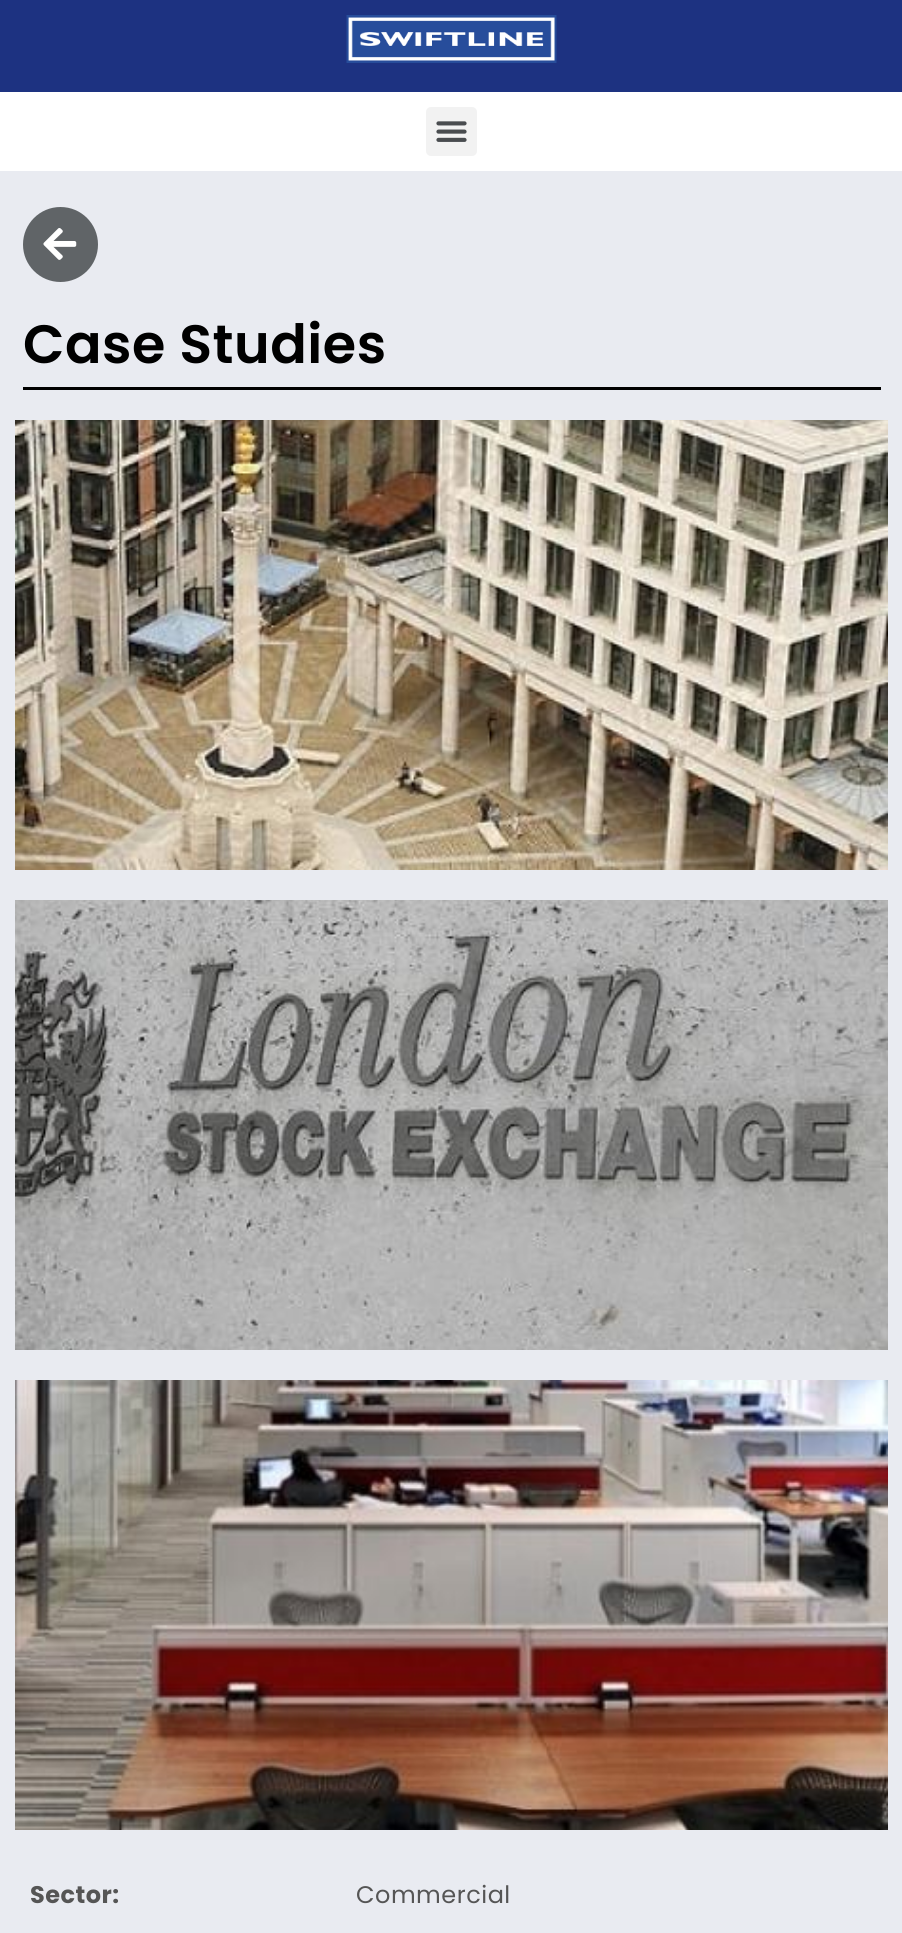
import math
import cairocffi as cairo

surface = cairo.ImageSurface(cairo.FORMAT_RGB24, 902, 1933)
ctx = cairo.Context(surface)
options = cairo.FontOptions()
options.set_hint_metrics(cairo.HINT_METRICS_OFF)
options.set_hint_style(cairo.HINT_STYLE_NONE)
ctx.set_font_options(options)
ctx.set_miter_limit(4)


def rgb(r, g, b):
    ctx.set_source_rgb(r / 255, g / 255, b / 255)


def face(family, size, italic, bold):
    ctx.select_font_face(family, cairo.FONT_SLANT_ITALIC if italic else cairo.FONT_SLANT_NORMAL, cairo.FONT_WEIGHT_BOLD if bold else cairo.FONT_WEIGHT_NORMAL)
    ctx.set_font_size(size)


def tracked(x, y, s, letter, word):
    ctx.move_to(x, y)
    for ch in s:
        ctx.show_text(ch)
        ctx.rel_move_to(letter + word * (ch == ' '), 0)


def rect(x, y, w, h):
    ctx.rectangle(x, y, w, h)
    ctx.fill()


def rrect(x, y, w, h, r):
    ctx.new_sub_path()
    for i, (u, v) in enumerate([(x + w - r, y + h - r), (x + r, y + h - r), (x + r, y + r), (x + w - r, y + r)]):
        ctx.arc(u, v, r, i * math.pi / 2, (i + 1) * math.pi / 2)
    ctx.close_path()


def image(path, x, y, w, h):
    ctx.save()
    ctx.set_source_surface(cairo.ImageSurface.create_from_png(path), x, y)
    ctx.rectangle(x, y, w, h)
    ctx.fill()
    ctx.restore()


rgb(233, 235, 241)
ctx.paint()
rgb(29, 50, 129)
rect(0, 0, 902, 92)
image('image0.png', 346, 15, 211, 48)
rgb(255, 255, 255)
rect(0, 92, 902, 79)
rgb(242, 242, 242)
rrect(426, 107, 51, 49, 5)
ctx.fill()
image('image1.png', 436, 121, 31, 21)
rgb(96, 100, 103)
ctx.arc(60.5, 244.5, 37.5, 0, 2 * math.pi)
ctx.fill()
image('image2.png', 43, 228, 34, 32)
face('Poppins SemiBold', 54, 0, 0)
rgb(0, 0, 0)
tracked(23, 363, 'Case Studies', 0.5, 0)
rect(23, 387, 858, 3)
image('image3.png', 15, 420, 873, 450)
image('image4.png', 15, 900, 873, 450)
image('image5.png', 15, 1380, 873, 450)
face('Poppins', 24, 0, 1)
rgb(85, 85, 85)
tracked(30, 1903, 'Sector:', 0.5, 0)
face('Poppins', 24, 0, 0)
tracked(356, 1903, 'Commercial', 0.5, 0)
surface.write_to_png('render.png')
